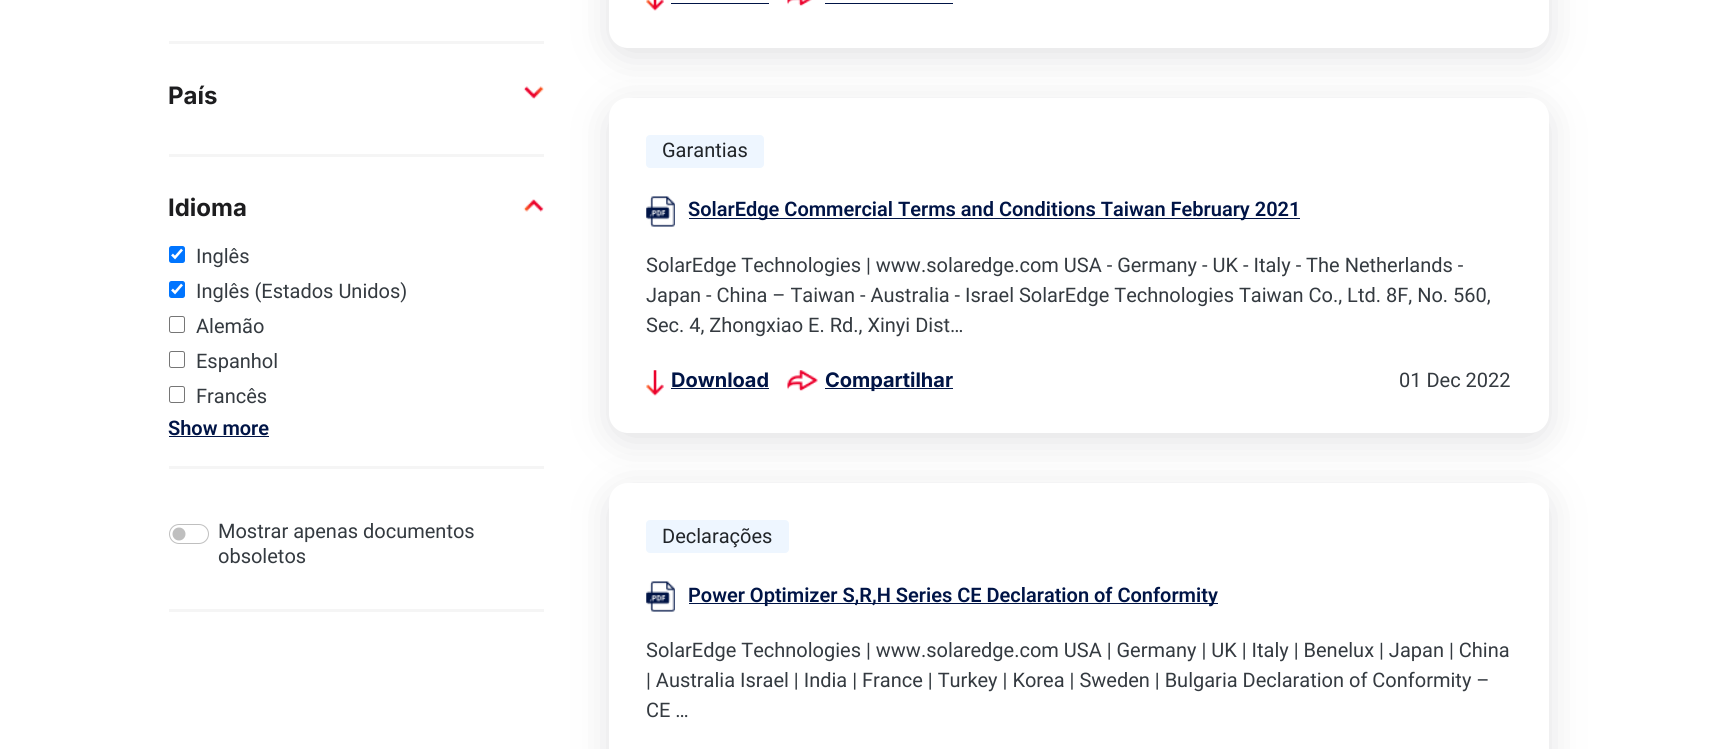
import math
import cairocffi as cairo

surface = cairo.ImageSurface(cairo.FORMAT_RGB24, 1731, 749)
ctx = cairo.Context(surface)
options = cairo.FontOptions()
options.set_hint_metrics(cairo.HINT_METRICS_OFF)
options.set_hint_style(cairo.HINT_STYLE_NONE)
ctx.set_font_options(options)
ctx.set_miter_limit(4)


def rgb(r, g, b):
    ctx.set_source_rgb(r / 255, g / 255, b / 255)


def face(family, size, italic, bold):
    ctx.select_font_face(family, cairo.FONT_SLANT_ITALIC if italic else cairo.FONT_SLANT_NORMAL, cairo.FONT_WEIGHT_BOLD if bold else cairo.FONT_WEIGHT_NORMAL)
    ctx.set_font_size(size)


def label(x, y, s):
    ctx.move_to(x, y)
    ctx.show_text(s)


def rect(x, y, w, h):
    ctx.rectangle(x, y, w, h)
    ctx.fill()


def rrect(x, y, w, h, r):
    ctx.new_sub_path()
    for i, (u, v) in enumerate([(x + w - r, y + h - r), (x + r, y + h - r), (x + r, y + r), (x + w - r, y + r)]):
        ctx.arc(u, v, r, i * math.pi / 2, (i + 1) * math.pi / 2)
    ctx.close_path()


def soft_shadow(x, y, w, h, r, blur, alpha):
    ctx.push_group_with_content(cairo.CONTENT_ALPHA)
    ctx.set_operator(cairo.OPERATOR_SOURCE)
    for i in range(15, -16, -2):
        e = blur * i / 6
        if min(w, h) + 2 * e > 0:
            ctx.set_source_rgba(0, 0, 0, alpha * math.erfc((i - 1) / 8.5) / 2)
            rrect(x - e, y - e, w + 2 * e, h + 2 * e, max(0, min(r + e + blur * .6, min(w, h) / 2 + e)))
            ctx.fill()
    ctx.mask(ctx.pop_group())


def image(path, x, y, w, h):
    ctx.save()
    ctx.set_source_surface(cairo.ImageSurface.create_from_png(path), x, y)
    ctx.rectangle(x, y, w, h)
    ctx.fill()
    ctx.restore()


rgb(255, 255, 255)
ctx.paint()
rgb(245, 245, 245)
rect(169, 41, 375, 3)
rect(169, 154, 375, 3)
face('Inter', 24, 0, 1)
rgb(29, 29, 31)
label(168, 104, 'País')
image('image0.png', 523, 86, 21, 13)
rgb(245, 245, 245)
rect(169, 466, 375, 3)
rgb(29, 29, 31)
label(168, 216, 'Idioma')
image('image1.png', 523, 199, 21, 13)
rgb(0, 117, 255)
rrect(169, 246, 16, 17, 2.5)
ctx.fill()
ctx.new_path()
ctx.move_to(172, 254.5)
ctx.line_to(175, 257.5)
ctx.line_to(182, 249.5)
rgb(255, 255, 255)
ctx.set_line_width(2.6)
ctx.stroke()
face('Roboto', 20, 0, 0)
rgb(52, 58, 64)
label(196, 263, 'Inglês')
rgb(0, 117, 255)
rrect(169, 281, 16, 17, 2.5)
ctx.fill()
ctx.new_path()
ctx.move_to(172, 289.5)
ctx.line_to(175, 292.5)
ctx.line_to(182, 284.5)
rgb(255, 255, 255)
ctx.stroke()
rgb(52, 58, 64)
label(196, 298, 'Inglês (Estados Unidos)')
rrect(169.5, 316.5, 15, 16, 2)
rgb(118, 118, 118)
ctx.set_line_width(1)
ctx.stroke()
rgb(52, 58, 64)
label(196, 333, 'Alemão')
rrect(169.5, 351.5, 15, 16, 2)
rgb(118, 118, 118)
ctx.stroke()
rgb(52, 58, 64)
label(196, 368, 'Espanhol')
rrect(169.5, 386.5, 15, 16, 2)
rgb(118, 118, 118)
ctx.stroke()
rgb(52, 58, 64)
label(196, 403, 'Francês')
face('Roboto SemiBold', 20, 0, 0)
rgb(0, 20, 70)
label(168, 435, 'Show more')
rect(169, 436, 100, 1)
rgb(245, 245, 245)
rect(169, 609, 375, 3)
rgb(191, 191, 191)
ctx.new_path()
ctx.arc(179, 534, 6.5, 0, 2 * math.pi)
ctx.fill()
rrect(169.5, 524.5, 39, 19, 9.5)
ctx.stroke()
face('Roboto', 20, 0, 0)
rgb(52, 58, 64)
label(218, 538, 'Mostrar apenas documentos')
label(218, 563, 'obsoletos')
rgb(100, 100, 111)
soft_shadow(609, -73, 940, 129, 19, 18, 0.2)
rgb(255, 255, 255)
rrect(609, -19, 940, 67, 19)
ctx.fill()
image('image2.png', 646, 0, 18, 11)
rgb(0, 20, 70)
rect(671, 3, 98, 1)
image('image3.png', 787, 0, 25, 6)
rect(825, 3, 128, 1)
rgb(100, 100, 111)
soft_shadow(609, 106, 940, 335, 19, 18, 0.2)
rgb(255, 255, 255)
rrect(609, 98, 940, 335, 19)
ctx.fill()
rgb(238, 246, 255)
rrect(646.5, 135.5, 117, 32, 3.5)
ctx.fill_preserve()
ctx.stroke()
rgb(33, 37, 41)
label(662, 157, 'Garantias')
image('image4.png', 646, 196, 29, 31)
rgb(0, 20, 70)
rect(689, 218, 611, 1)
face('Roboto SemiBold', 20, 0, 0)
label(688, 216, 'SolarEdge Commercial Terms and Conditions Taiwan February 2021')
face('Roboto', 20, 0, 0)
rgb(52, 58, 64)
label(646, 272, 'SolarEdge Technologies | www.solaredge.com USA - Germany - UK - Italy - The Netherlands -')
label(646, 302, 'Japan - China – Taiwan - Australia - Israel SolarEdge Technologies Taiwan Co., Ltd. 8F, No. 560,')
label(646, 332, 'Sec. 4, Zhongxiao E. Rd., Xinyi Dist…')
image('image5.png', 646, 370, 18, 26)
face('Inter', 20, 0, 1)
rgb(0, 20, 70)
label(671, 387, 'Download')
rect(671, 388, 98, 1)
image('image6.png', 787, 370, 31, 21)
rect(825, 388, 128, 1)
label(825, 387, 'Compartilhar')
face('Roboto', 20, 0, 0)
rgb(52, 58, 64)
label(1399, 387, '01 Dec 2022')
rgb(100, 100, 111)
soft_shadow(609, 491, 940, 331, 19, 18, 0.2)
rgb(255, 255, 255)
rrect(609, 483, 940, 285, 19)
ctx.fill()
rgb(238, 246, 255)
rrect(646.5, 520.5, 142, 32, 3.5)
ctx.fill_preserve()
ctx.stroke()
rgb(33, 37, 41)
label(662, 543, 'Declarações')
image('image4.png', 646, 581, 29, 31)
rgb(0, 20, 70)
rect(689, 603, 529, 1)
face('Roboto SemiBold', 20, 0, 0)
label(688, 602, 'Power Optimizer S,R,H Series CE Declaration of Conformity')
face('Roboto', 20, 0, 0)
rgb(52, 58, 64)
label(646, 657, 'SolarEdge Technologies | www.solaredge.com USA | Germany | UK | Italy | Benelux | Japan | China')
label(646, 687, '| Australia Israel | India | France | Turkey | Korea | Sweden | Bulgaria Declaration of Conformity –')
label(646, 717, 'CE …')
surface.write_to_png('render.png')
